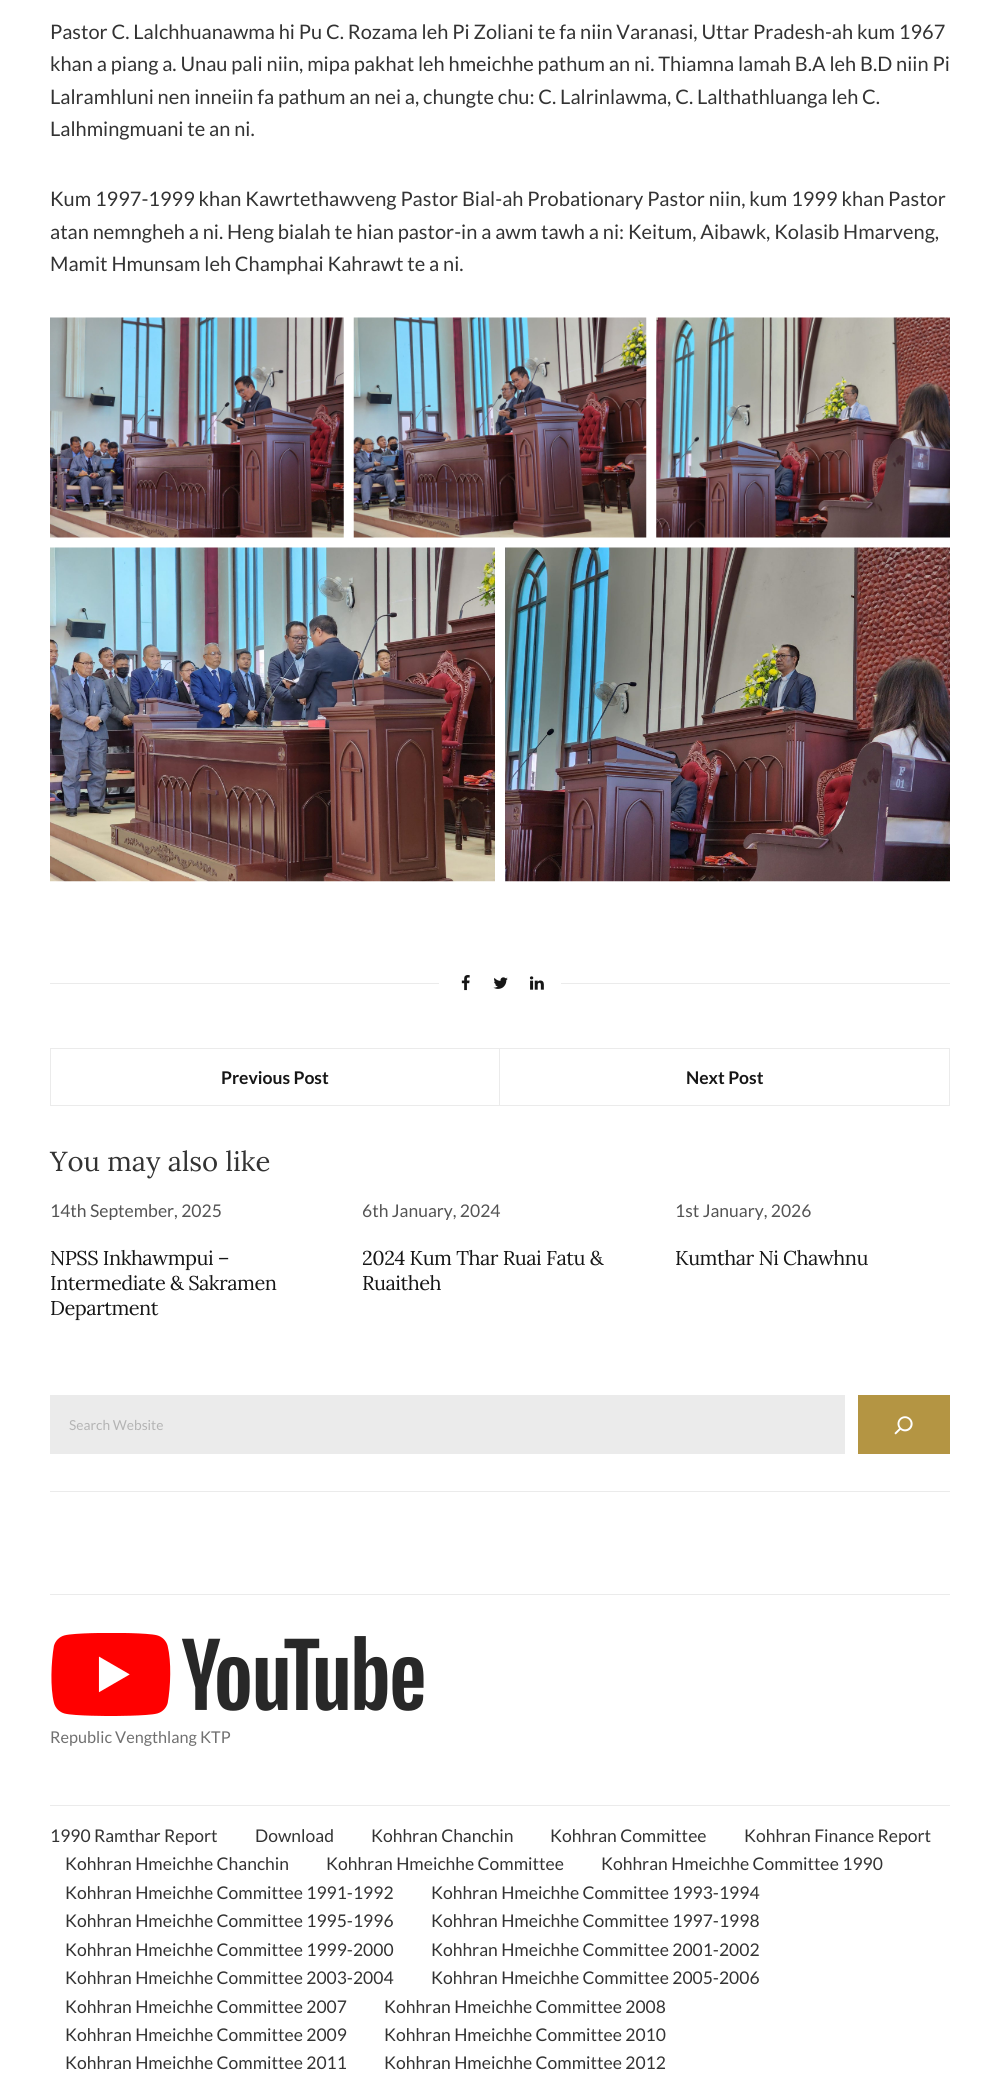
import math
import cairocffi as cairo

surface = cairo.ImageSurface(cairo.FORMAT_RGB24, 999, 2090)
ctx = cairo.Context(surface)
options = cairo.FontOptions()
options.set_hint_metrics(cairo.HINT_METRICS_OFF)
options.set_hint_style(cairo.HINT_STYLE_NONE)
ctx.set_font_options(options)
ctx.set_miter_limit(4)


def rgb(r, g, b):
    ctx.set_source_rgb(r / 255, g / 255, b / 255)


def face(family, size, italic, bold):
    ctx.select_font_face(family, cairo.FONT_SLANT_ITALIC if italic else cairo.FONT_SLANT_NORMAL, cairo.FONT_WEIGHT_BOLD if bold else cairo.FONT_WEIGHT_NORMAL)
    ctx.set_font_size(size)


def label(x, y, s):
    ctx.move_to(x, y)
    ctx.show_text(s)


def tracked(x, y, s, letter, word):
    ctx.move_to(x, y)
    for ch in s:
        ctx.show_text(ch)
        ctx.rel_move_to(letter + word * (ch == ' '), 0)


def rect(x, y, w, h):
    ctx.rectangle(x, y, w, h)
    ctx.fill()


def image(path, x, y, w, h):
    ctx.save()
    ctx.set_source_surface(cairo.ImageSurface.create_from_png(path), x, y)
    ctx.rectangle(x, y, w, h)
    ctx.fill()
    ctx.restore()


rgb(255, 255, 255)
ctx.paint()
face('Lato', 20, 0, 0)
rgb(51, 51, 51)
label(50, 39, 'Pastor C. Lalchhuanawma hi Pu C. Rozama leh Pi Zoliani te fa niin Varanasi, Uttar Pradesh-ah kum 1967')
label(50, 71, 'khan a piang a. Unau pali niin, mipa pakhat leh hmeichhe pathum an ni. Thiamna lamah B.A leh B.D niin Pi')
label(50, 104, 'Lalramhluni nen inneiin fa pathum an nei a, chungte chu: C. Lalrinlawma, C. Lalthathluanga leh C.')
label(50, 136, 'Lalhmingmuani te an ni.')
label(50, 206, 'Kum 1997-1999 khan Kawrtethawveng Pastor Bial-ah Probationary Pastor niin, kum 1999 khan Pastor')
label(50, 239, 'atan nemngheh a ni. Heng bialah te hian pastor-in a awm tawh a ni: Keitum, Aibawk, Kolasib Hmarveng,')
label(50, 271, 'Mamit Hmunsam leh Champhai Kahrawt te a ni.')
image('image0.png', 50, 317, 294, 221)
image('image1.png', 353, 317, 294, 221)
image('image2.png', 656, 317, 294, 221)
image('image3.png', 50, 547, 445, 335)
image('image4.png', 505, 547, 445, 335)
rgb(235, 235, 235)
rect(50, 983, 900, 1)
rgb(255, 255, 255)
rect(439, 983, 122, 1)
image('image5.png', 461, 975, 9, 16)
image('image6.png', 493, 977, 15, 12)
image('image7.png', 529, 976, 15, 14)
ctx.rectangle(50.5, 1048.5, 899, 57)
rgb(235, 235, 235)
ctx.set_line_width(1)
ctx.stroke()
rect(499, 1049, 1, 56)
face('Lato', 17.5, 0, 1)
rgb(22, 22, 22)
label(221, 1084, 'Previous Post')
label(686, 1084, 'Next Post')
face('Lora', 27.5, 0, 0)
rgb(51, 51, 51)
label(50, 1171, 'You may also like')
face('Lato', 17.5, 0, 0)
rgb(84, 84, 84)
label(50, 1217, '14th September, 2025')
face('Lora', 20, 0, 0)
rgb(22, 22, 22)
tracked(50, 1265, 'NPSS Inkhawmpui –', -0.5, 0)
tracked(50, 1290, 'Intermediate & Sakramen', -0.5, 0)
tracked(50, 1315, 'Department', -0.5, 0)
face('Lato', 17.5, 0, 0)
rgb(84, 84, 84)
label(362, 1217, '6th January, 2024')
face('Lora', 20, 0, 0)
rgb(22, 22, 22)
tracked(362, 1265, '2024 Kum Thar Ruai Fatu &', -0.5, 0)
tracked(362, 1290, 'Ruaitheh', -0.5, 0)
face('Lato', 17.5, 0, 0)
rgb(84, 84, 84)
label(675, 1217, '1st January, 2026')
face('Lora', 20, 0, 0)
rgb(22, 22, 22)
tracked(675, 1265, 'Kumthar Ni Chawhnu', -0.5, 0)
rgb(235, 235, 235)
rect(50, 1491, 900, 1)
rect(50, 1395, 795, 59)
face('Lato', 13.75, 0, 0)
rgb(180, 180, 180)
label(69, 1430, 'Search Website')
rgb(180, 149, 67)
rect(858, 1395, 92, 59)
image('image8.png', 894, 1416, 19, 19)
rgb(235, 235, 235)
rect(50, 1594, 900, 1)
image('image9.png', 51, 1633, 373, 83)
face('Lato', 16.25, 0, 0)
rgb(112, 112, 112)
label(50, 1743, 'Republic Vengthlang KTP')
rgb(235, 235, 235)
rect(50, 1805, 900, 1)
face('Lato', 17.5, 0, 0)
rgb(51, 51, 51)
label(50, 1842, '1990 Ramthar Report')
label(255, 1842, 'Download')
label(371, 1842, 'Kohhran Chanchin')
label(550, 1842, 'Kohhran Committee')
label(744, 1842, 'Kohhran Finance Report')
label(65, 1870, 'Kohhran Hmeichhe Chanchin')
label(326, 1870, 'Kohhran Hmeichhe Committee')
label(601, 1870, 'Kohhran Hmeichhe Committee 1990')
label(65, 1899, 'Kohhran Hmeichhe Committee 1991-1992')
label(431, 1899, 'Kohhran Hmeichhe Committee 1993-1994')
label(65, 1927, 'Kohhran Hmeichhe Committee 1995-1996')
label(431, 1927, 'Kohhran Hmeichhe Committee 1997-1998')
label(65, 1956, 'Kohhran Hmeichhe Committee 1999-2000')
label(431, 1956, 'Kohhran Hmeichhe Committee 2001-2002')
label(65, 1984, 'Kohhran Hmeichhe Committee 2003-2004')
label(431, 1984, 'Kohhran Hmeichhe Committee 2005-2006')
label(65, 2013, 'Kohhran Hmeichhe Committee 2007')
label(384, 2013, 'Kohhran Hmeichhe Committee 2008')
label(65, 2041, 'Kohhran Hmeichhe Committee 2009')
label(384, 2041, 'Kohhran Hmeichhe Committee 2010')
label(65, 2069, 'Kohhran Hmeichhe Committee 2011')
label(384, 2069, 'Kohhran Hmeichhe Committee 2012')
surface.write_to_png('render.png')
